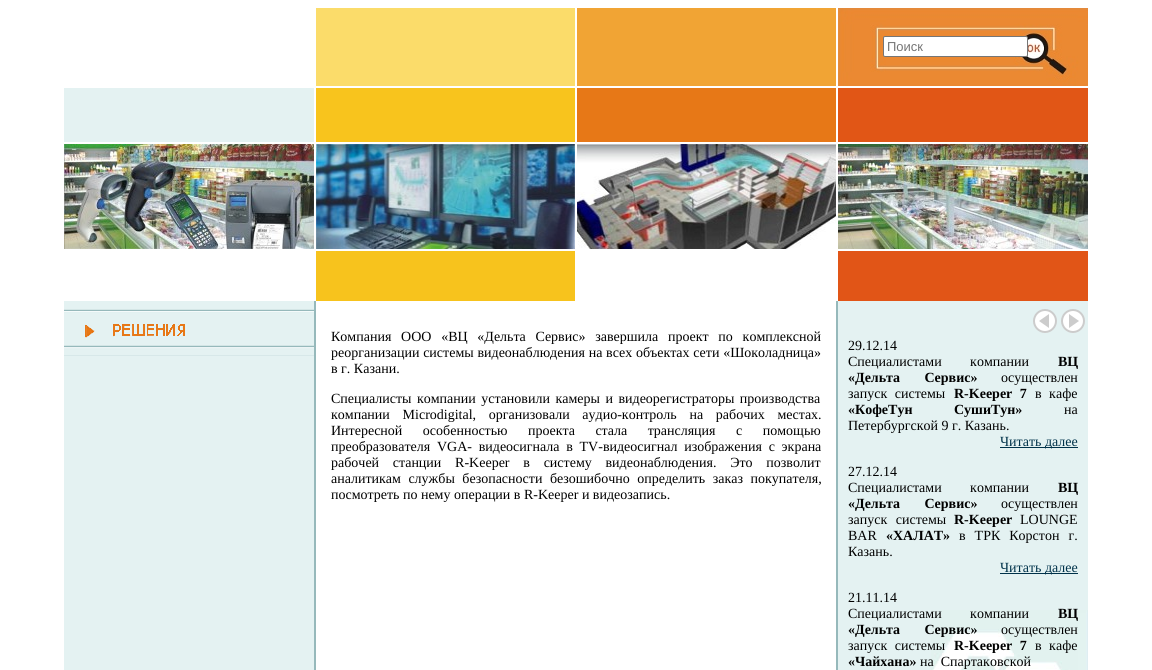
import math
import cairocffi as cairo

surface = cairo.ImageSurface(cairo.FORMAT_RGB24, 1152, 670)
ctx = cairo.Context(surface)
options = cairo.FontOptions()
options.set_hint_metrics(cairo.HINT_METRICS_OFF)
options.set_hint_style(cairo.HINT_STYLE_NONE)
ctx.set_font_options(options)
ctx.set_miter_limit(4)


def rgb(r, g, b):
    ctx.set_source_rgb(r / 255, g / 255, b / 255)


def face(family, size, italic, bold):
    ctx.select_font_face(family, cairo.FONT_SLANT_ITALIC if italic else cairo.FONT_SLANT_NORMAL, cairo.FONT_WEIGHT_BOLD if bold else cairo.FONT_WEIGHT_NORMAL)
    ctx.set_font_size(size)


def label(x, y, s):
    ctx.move_to(x, y)
    ctx.show_text(s)


def tracked(x, y, s, letter, word):
    ctx.move_to(x, y)
    for ch in s:
        ctx.show_text(ch)
        ctx.rel_move_to(letter + word * (ch == ' '), 0)


def rect(x, y, w, h):
    ctx.rectangle(x, y, w, h)
    ctx.fill()


def rrect(x, y, w, h, r):
    ctx.new_sub_path()
    for i, (u, v) in enumerate([(x + w - r, y + h - r), (x + r, y + h - r), (x + r, y + r), (x + w - r, y + r)]):
        ctx.arc(u, v, r, i * math.pi / 2, (i + 1) * math.pi / 2)
    ctx.close_path()


def image(path, x, y, w, h):
    ctx.save()
    ctx.set_source_surface(cairo.ImageSurface.create_from_png(path), x, y)
    ctx.rectangle(x, y, w, h)
    ctx.fill()
    ctx.restore()


rgb(255, 255, 255)
ctx.paint()
rgb(251, 220, 106)
rect(316, 8, 259, 78)
rgb(241, 164, 52)
rect(577, 8, 259, 78)
image('image0.png', 838, 8, 250, 78)
rgb(255, 255, 255)
rrect(883.5, 36.5, 144, 20, 1.5)
ctx.fill_preserve()
rgb(118, 118, 118)
ctx.set_line_width(1)
ctx.stroke()
face('Liberation Sans', 13, 0, 0)
rgb(117, 117, 117)
label(887, 51, 'Поиск')
rgb(228, 242, 242)
rect(64, 88, 250, 54)
rgb(248, 196, 29)
rect(316, 88, 259, 54)
rgb(231, 120, 23)
rect(577, 88, 259, 54)
rgb(225, 86, 22)
rect(838, 88, 250, 54)
image('image1.png', 64, 144, 250, 105)
image('image2.png', 316, 144, 259, 105)
image('image3.png', 577, 144, 259, 105)
image('image4.png', 838, 144, 250, 105)
rgb(247, 195, 29)
rect(316, 251, 259, 50)
rgb(225, 85, 23)
rect(838, 251, 250, 50)
rgb(228, 242, 242)
rect(64, 301, 250, 369)
image('image5.png', 64, 309, 250, 47)
rgb(150, 185, 187)
rect(314, 301, 2, 369)
face('Liberation Serif', 14, 0, 0)
rgb(0, 0, 0)
tracked(331, 341, 'Компания ООО «ВЦ «Дельта Сервис» завершила проект по комплексной', 0, 6.25)
tracked(331, 357, 'реорганизации системы видеонаблюдения на всех объектах сети «Шоколадница»', 0, 0.25)
label(331, 373, 'в г. Казани.')
tracked(331, 403, 'Специалисты компании установили камеры и видеорегистраторы производства', 0, 2)
tracked(331, 419, 'компании Microdigital, организовали аудио-контроль на рабочих местах.', 0, 9.25)
tracked(331, 435, 'Интересной особенностью проекта стала трансляция с помощью', 0, 17)
tracked(331, 451, 'преобразователя VGA- видеосигнала в TV-видеосигнал изображения с экрана', 0, 3.25)
tracked(331, 467, 'рабочей станции R-Keeper в систему видеонаблюдения. Это позволит', 0, 10.25)
tracked(331, 483, 'аналитикам службы безопасности безошибочно определить заказ покупателя,', 0, 4)
label(331, 499, 'посмотреть по нему операции в R-Keeper и видеозапись.')
rgb(150, 185, 187)
rect(836, 301, 2, 369)
rgb(228, 242, 242)
rect(838, 301, 250, 369)
image('image6.png', 931, 610, 157, 60)
rgb(255, 255, 255)
ctx.arc(1045, 321, 11, 0, 2 * math.pi)
ctx.fill_preserve()
rgb(204, 204, 204)
ctx.set_line_width(2)
ctx.stroke()
ctx.new_path()
ctx.move_to(1049, 314)
ctx.line_to(1049, 328)
ctx.line_to(1039, 321)
ctx.close_path()
ctx.fill()
rgb(255, 255, 255)
ctx.arc(1073, 321, 11, 0, 2 * math.pi)
ctx.fill_preserve()
rgb(204, 204, 204)
ctx.stroke()
ctx.new_path()
ctx.move_to(1069, 328)
ctx.line_to(1069, 314)
ctx.line_to(1079, 321)
ctx.close_path()
ctx.fill()
rgb(0, 0, 0)
label(848, 350, '29.12.14')
tracked(848, 366, 'Специалистами компании', 0, 25)
face('Liberation Serif', 14, 0, 1)
label(1058, 366, 'ВЦ')
tracked(848, 382, '«Дельта Сервис»', 0, 21)
face('Liberation Serif', 14, 0, 0)
label(1001, 382, 'осуществлен')
tracked(848, 398, 'запуск системы', 0, 4)
face('Liberation Serif', 14, 0, 1)
tracked(954, 398, 'R-Keeper 7', 0, 4)
face('Liberation Serif', 14, 0, 0)
tracked(1035, 398, 'в кафе', 0, 4)
face('Liberation Serif', 14, 0, 1)
tracked(848, 414, '«КофеТун СушиТун»', 0, 38)
face('Liberation Serif', 14, 0, 0)
label(1064, 414, 'на')
label(848, 430, 'Петербургской 9 г. Казань.')
rgb(0, 50, 74)
rect(1000, 447, 78, 1)
label(1000, 446, 'Читать далее')
rgb(0, 0, 0)
label(848, 476, '27.12.14')
tracked(848, 492, 'Специалистами компании', 0, 25)
face('Liberation Serif', 14, 0, 1)
label(1058, 492, 'ВЦ')
tracked(848, 508, '«Дельта Сервис»', 0, 21)
face('Liberation Serif', 14, 0, 0)
label(1001, 508, 'осуществлен')
tracked(848, 524, 'запуск системы', 0, 5)
face('Liberation Serif', 14, 0, 1)
label(954, 524, 'R-Keeper')
face('Liberation Serif', 14, 0, 0)
label(1020, 524, 'LOUNGE')
label(848, 540, 'BAR')
face('Liberation Serif', 14, 0, 1)
label(886, 540, '«ХАЛАТ»')
face('Liberation Serif', 14, 0, 0)
tracked(959, 540, 'в ТРК Корстон г.', 0, 5.5)
label(848, 556, 'Казань.')
rgb(0, 50, 74)
rect(1000, 573, 78, 1)
label(1000, 572, 'Читать далее')
rgb(0, 0, 0)
label(848, 602, '21.11.14')
tracked(848, 618, 'Специалистами компании', 0, 25)
face('Liberation Serif', 14, 0, 1)
label(1058, 618, 'ВЦ')
tracked(848, 634, '«Дельта Сервис»', 0, 21)
face('Liberation Serif', 14, 0, 0)
label(1001, 634, 'осуществлен')
tracked(848, 650, 'запуск системы', 0, 4)
face('Liberation Serif', 14, 0, 1)
tracked(954, 650, 'R-Keeper 7', 0, 4)
face('Liberation Serif', 14, 0, 0)
tracked(1035, 650, 'в кафе', 0, 4)
face('Liberation Serif', 14, 0, 1)
label(848, 666, '«Чайхана»')
face('Liberation Serif', 14, 0, 0)
label(920, 666, 'на  Спартаковской')
surface.write_to_png('render.png')
